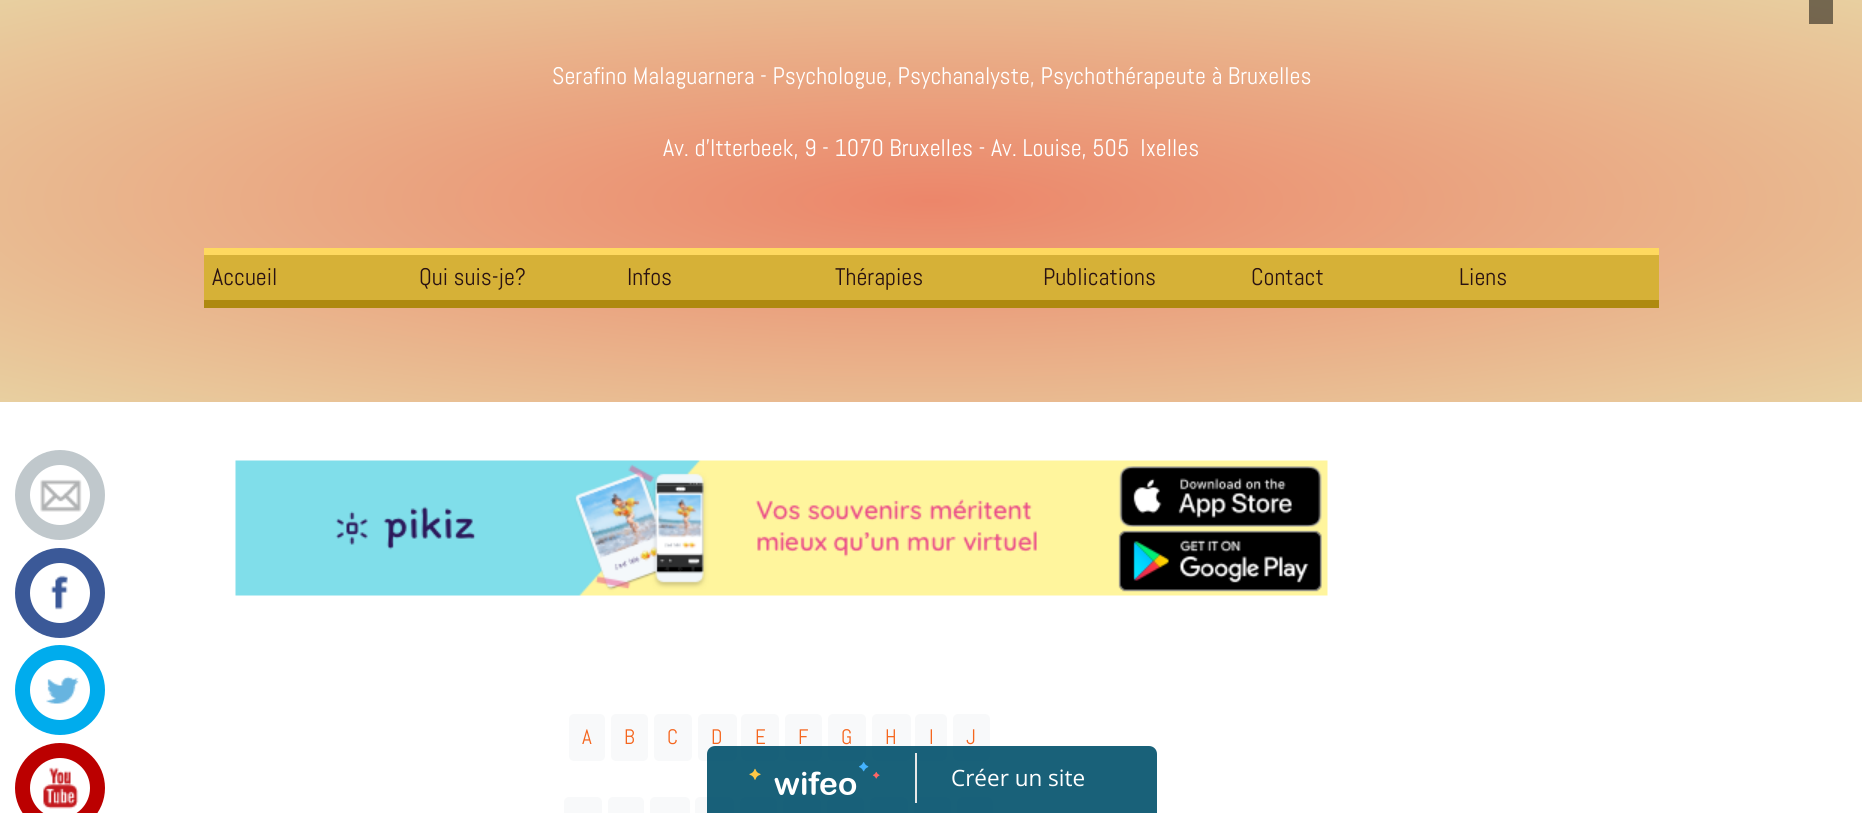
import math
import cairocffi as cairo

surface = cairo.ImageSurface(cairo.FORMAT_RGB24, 1862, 813)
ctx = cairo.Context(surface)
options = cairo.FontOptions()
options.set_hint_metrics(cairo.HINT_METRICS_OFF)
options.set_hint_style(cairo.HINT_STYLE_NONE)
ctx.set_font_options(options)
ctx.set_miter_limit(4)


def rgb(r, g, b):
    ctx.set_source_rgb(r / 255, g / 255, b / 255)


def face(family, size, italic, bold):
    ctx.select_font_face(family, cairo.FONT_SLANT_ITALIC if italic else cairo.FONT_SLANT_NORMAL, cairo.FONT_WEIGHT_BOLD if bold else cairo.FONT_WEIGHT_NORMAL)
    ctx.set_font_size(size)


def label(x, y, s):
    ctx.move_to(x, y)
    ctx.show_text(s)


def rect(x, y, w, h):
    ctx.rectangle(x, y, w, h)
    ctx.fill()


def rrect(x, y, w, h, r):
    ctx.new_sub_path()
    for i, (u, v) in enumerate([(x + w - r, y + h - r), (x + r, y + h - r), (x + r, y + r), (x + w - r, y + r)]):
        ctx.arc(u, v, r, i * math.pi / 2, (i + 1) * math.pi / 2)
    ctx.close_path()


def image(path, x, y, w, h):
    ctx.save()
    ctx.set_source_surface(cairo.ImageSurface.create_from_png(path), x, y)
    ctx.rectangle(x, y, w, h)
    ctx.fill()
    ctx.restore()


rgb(255, 255, 255)
ctx.paint()
gradient = cairo.RadialGradient(0, 0, 0, 0, 0, 1)
gradient.set_matrix(cairo.Matrix(1 / 1317, 0, 0, 1 / 284, -1 * 932 / 1317, -1 * 201 / 284))
gradient.add_color_stop_rgba(0, 0.925, 0.525, 0.416, 1)
gradient.add_color_stop_rgba(1, 0.91, 0.812, 0.627, 1)
ctx.set_source(gradient)
rect(0, 0, 1862, 402)
gradient = cairo.RadialGradient(0, 0, 0, 0, 0, 1)
gradient.set_matrix(cairo.Matrix(1 / 1317, 0, 0, 1 / 284, -1 * 932 / 1317, -1 * 201 / 284))
gradient.add_color_stop_rgba(0, 0.463, 0.263, 0.208, 1)
gradient.add_color_stop_rgba(1, 0.455, 0.408, 0.314, 1)
ctx.set_source(gradient)
rect(1809, 0, 24, 24)
face('Abel', 24, 0, 0)
rgb(255, 255, 255)
label(552, 84, 'Serafino Malaguarnera - Psychologue, Psychanalyste, Psychothérapeute à Bruxelles')
label(663, 156, 'Av. d\'Itterbeek, 9 - 1070 Bruxelles - Av. Louise, 505  Ixelles')
rgb(214, 177, 55)
rect(204, 255, 1455, 45)
rgb(254, 217, 95)
rect(204, 248, 1455, 7)
rgb(174, 137, 15)
rect(204, 300, 1455, 8)
rgb(41, 18, 18)
label(212, 285, 'Accueil')
label(419, 285, 'Qui suis-je?')
label(627, 285, 'Infos')
label(835, 285, 'Thérapies')
label(1043, 285, 'Publications')
label(1251, 285, 'Contact')
label(1459, 285, 'Liens')
rgb(192, 200, 204)
ctx.new_path()
ctx.arc(60, 495, 45, 0, 2 * math.pi)
ctx.fill()
rgb(255, 255, 255)
ctx.arc(60, 495, 30, 0, 2 * math.pi)
ctx.fill()
image('image0.png', 40, 479, 42, 33)
rgb(59, 89, 152)
ctx.arc(60, 593, 45, 0, 2 * math.pi)
ctx.fill()
rgb(255, 255, 255)
ctx.arc(60, 593, 30, 0, 2 * math.pi)
ctx.fill()
image('image1.png', 50, 575, 18, 35)
rgb(0, 172, 237)
ctx.arc(60, 690, 45, 0, 2 * math.pi)
ctx.fill()
rgb(255, 255, 255)
ctx.arc(60, 690, 30, 0, 2 * math.pi)
ctx.fill()
image('image2.png', 46, 676, 33, 28)
rgb(187, 0, 0)
ctx.arc(60, 788, 45, 0, 2 * math.pi)
ctx.fill()
rgb(255, 255, 255)
ctx.arc(60, 788, 30, 0, 2 * math.pi)
ctx.fill()
image('image3.png', 43, 767, 36, 42)
image('image4.png', 235, 460, 1093, 136)
rgb(248, 249, 250)
rrect(569, 714, 36, 47, 5)
ctx.fill()
face('Abel', 21, 0, 0)
rgb(245, 102, 30)
label(582, 744, 'A')
rgb(248, 249, 250)
rrect(611, 714, 37, 47, 5)
ctx.fill()
rgb(245, 102, 30)
label(624, 744, 'B')
rgb(248, 249, 250)
rrect(654, 714, 38, 47, 5)
ctx.fill()
rgb(245, 102, 30)
label(667, 744, 'C')
rgb(248, 249, 250)
rrect(698, 714, 39, 47, 5)
ctx.fill()
rgb(245, 102, 30)
label(711, 744, 'D')
rgb(248, 249, 250)
rrect(741, 714, 38, 47, 5)
ctx.fill()
rgb(245, 102, 30)
label(755, 744, 'E')
rgb(248, 249, 250)
rrect(785, 714, 37, 47, 5)
ctx.fill()
rgb(245, 102, 30)
label(798, 744, 'F')
rgb(248, 249, 250)
rrect(828, 714, 38, 47, 5)
ctx.fill()
rgb(245, 102, 30)
label(841, 744, 'G')
rgb(248, 249, 250)
rrect(872, 714, 39, 47, 5)
ctx.fill()
rgb(245, 102, 30)
label(885, 744, 'H')
rgb(248, 249, 250)
rrect(915, 714, 32, 47, 5)
ctx.fill()
rgb(245, 102, 30)
label(929, 744, 'I')
rgb(248, 249, 250)
rrect(953, 714, 37, 47, 5)
ctx.fill()
rgb(245, 102, 30)
label(966, 744, 'J')
rgb(248, 249, 250)
rrect(564, 797, 38, 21, 5)
ctx.fill()
rrect(608, 797, 36, 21, 5)
ctx.fill()
rrect(650, 797, 40, 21, 5)
ctx.fill()
rrect(695, 797, 39, 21, 5)
ctx.fill()
rrect(740, 797, 37, 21, 5)
ctx.fill()
rrect(783, 797, 38, 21, 5)
ctx.fill()
rrect(827, 797, 37, 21, 5)
ctx.fill()
rrect(870, 797, 38, 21, 5)
ctx.fill()
rrect(914, 797, 37, 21, 5)
ctx.fill()
rrect(957, 797, 36, 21, 5)
ctx.fill()
ctx.set_source_rgba(0, 0.314, 0.42, 0.9)
ctx.new_path()
ctx.move_to(715, 746)
ctx.line_to(1149, 746)
ctx.curve_to(1153.5, 746, 1157, 749.5, 1157, 754)
ctx.line_to(1157, 813)
ctx.line_to(707, 813)
ctx.line_to(707, 754)
ctx.curve_to(707, 749.5, 710.5, 746, 715, 746)
ctx.close_path()
ctx.fill()
rgb(231, 231, 231)
rect(915, 753, 2, 50)
image('image5.png', 749, 762, 131, 33)
face('Open Sans', 22.5, 0, 0)
rgb(255, 255, 255)
label(951, 786, 'Créer un site')
surface.write_to_png('render.png')
